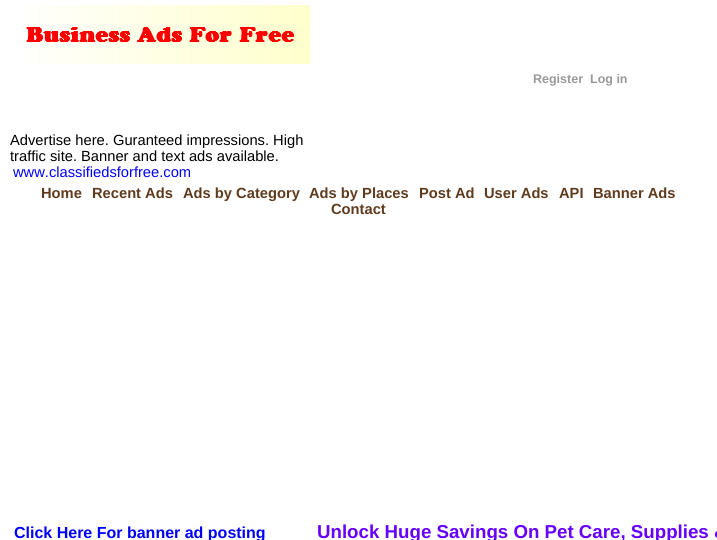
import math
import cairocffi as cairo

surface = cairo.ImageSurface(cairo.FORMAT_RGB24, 717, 540)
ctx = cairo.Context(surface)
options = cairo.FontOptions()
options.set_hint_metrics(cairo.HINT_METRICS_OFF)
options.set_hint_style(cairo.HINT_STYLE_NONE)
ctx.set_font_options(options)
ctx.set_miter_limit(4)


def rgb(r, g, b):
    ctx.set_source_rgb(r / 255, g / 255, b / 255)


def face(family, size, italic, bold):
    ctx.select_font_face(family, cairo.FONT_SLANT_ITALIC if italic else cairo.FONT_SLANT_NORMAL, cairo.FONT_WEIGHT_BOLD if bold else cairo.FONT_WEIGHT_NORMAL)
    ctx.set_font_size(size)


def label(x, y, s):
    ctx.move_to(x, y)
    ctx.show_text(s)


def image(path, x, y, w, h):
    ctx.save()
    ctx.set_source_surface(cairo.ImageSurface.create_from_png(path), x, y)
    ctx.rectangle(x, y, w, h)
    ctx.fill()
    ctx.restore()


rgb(255, 255, 255)
ctx.paint()
image('image0.png', 26, 5, 284, 59)
face('Liberation Sans', 12.5, 0, 1)
rgb(153, 153, 153)
label(533, 83, 'Register')
label(590, 83, 'Log in')
face('Liberation Sans', 14.7, 0, 0)
rgb(0, 0, 0)
label(10, 145, 'Advertise here. Guranteed impressions. High')
label(10, 161, 'traffic site. Banner and text ads available.')
rgb(0, 0, 255)
label(13, 177, 'www.classifiedsforfree.com')
face('Liberation Sans', 14.7, 0, 1)
rgb(95, 59, 30)
label(41, 198, 'Home')
label(92, 198, 'Recent Ads')
label(183, 198, 'Ads by Category')
label(309, 198, 'Ads by Places')
label(419, 198, 'Post Ad')
label(484, 198, 'User Ads')
label(559, 198, 'API')
label(593, 198, 'Banner Ads')
label(331, 214, 'Contact')
face('Liberation Sans', 16, 0, 1)
rgb(0, 0, 255)
label(14, 538, 'Click Here For banner ad posting')
face('Liberation Sans', 18.7, 0, 1)
rgb(102, 0, 255)
label(317, 538, 'Unlock Huge Savings On Pet Care, Supplies &')
surface.write_to_png('render.png')
